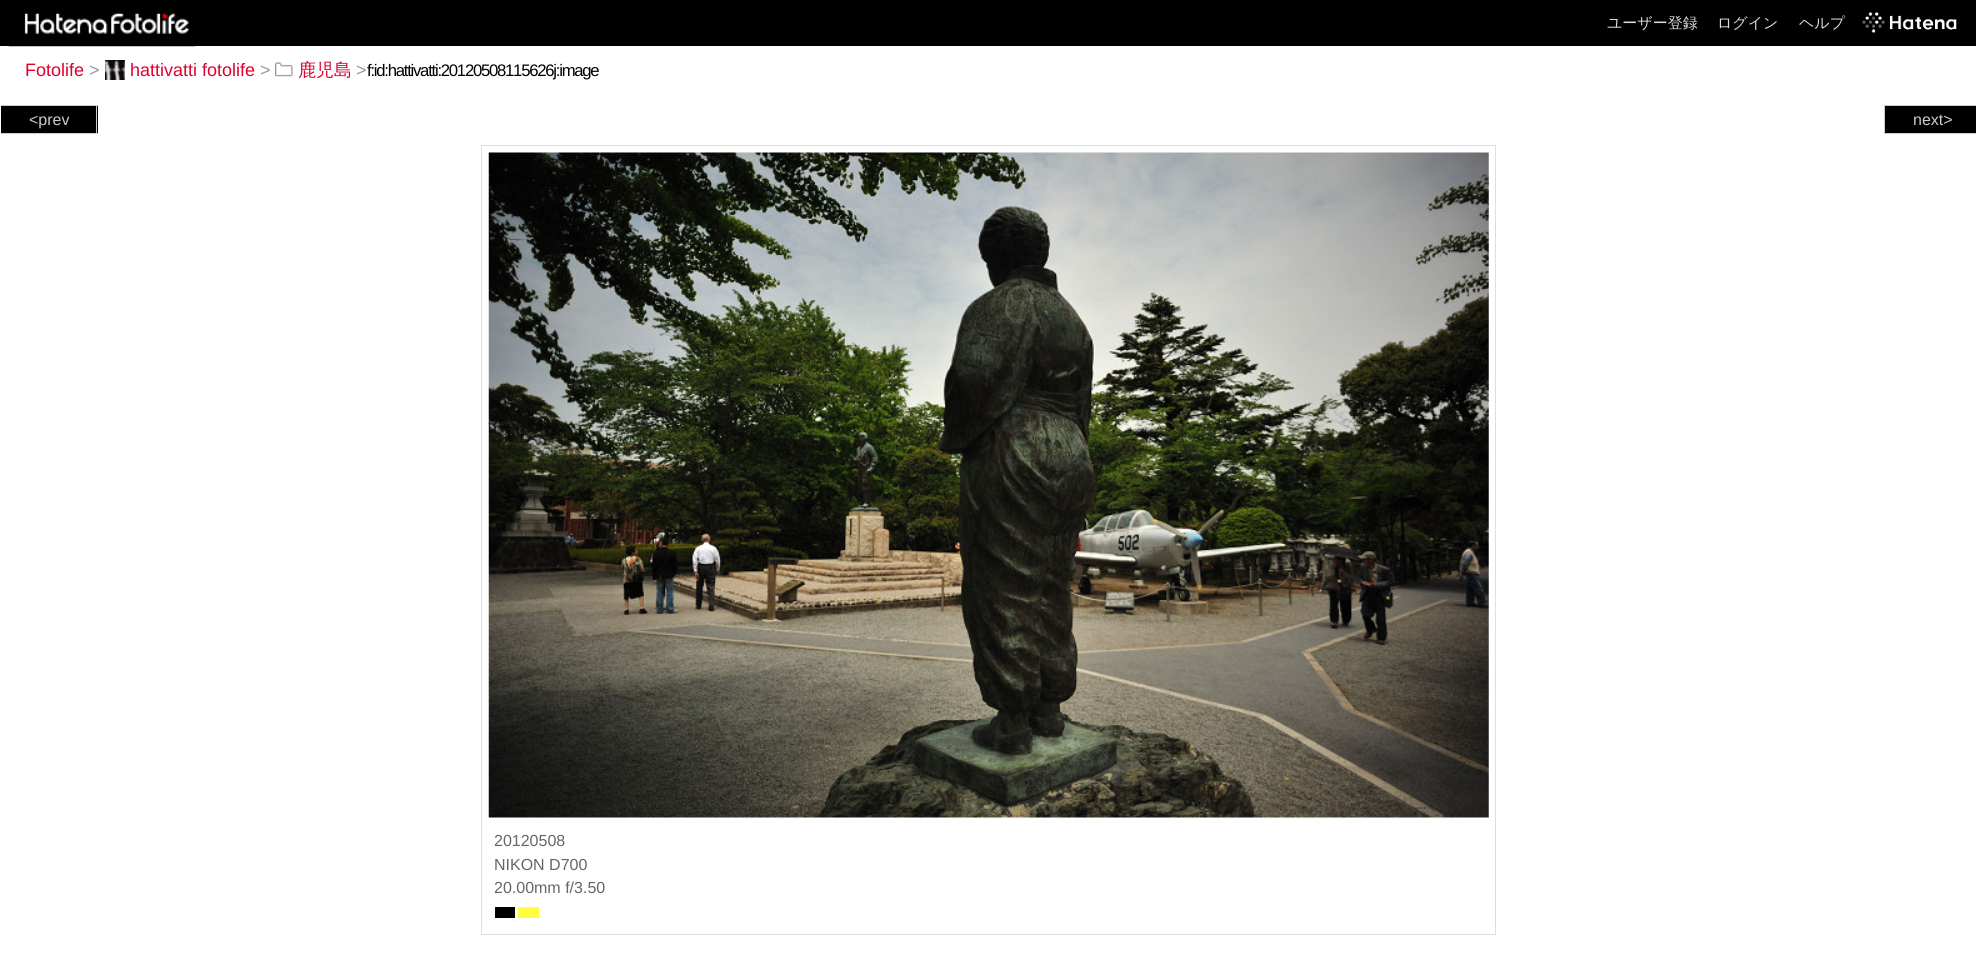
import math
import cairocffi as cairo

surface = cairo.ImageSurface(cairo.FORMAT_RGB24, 1976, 958)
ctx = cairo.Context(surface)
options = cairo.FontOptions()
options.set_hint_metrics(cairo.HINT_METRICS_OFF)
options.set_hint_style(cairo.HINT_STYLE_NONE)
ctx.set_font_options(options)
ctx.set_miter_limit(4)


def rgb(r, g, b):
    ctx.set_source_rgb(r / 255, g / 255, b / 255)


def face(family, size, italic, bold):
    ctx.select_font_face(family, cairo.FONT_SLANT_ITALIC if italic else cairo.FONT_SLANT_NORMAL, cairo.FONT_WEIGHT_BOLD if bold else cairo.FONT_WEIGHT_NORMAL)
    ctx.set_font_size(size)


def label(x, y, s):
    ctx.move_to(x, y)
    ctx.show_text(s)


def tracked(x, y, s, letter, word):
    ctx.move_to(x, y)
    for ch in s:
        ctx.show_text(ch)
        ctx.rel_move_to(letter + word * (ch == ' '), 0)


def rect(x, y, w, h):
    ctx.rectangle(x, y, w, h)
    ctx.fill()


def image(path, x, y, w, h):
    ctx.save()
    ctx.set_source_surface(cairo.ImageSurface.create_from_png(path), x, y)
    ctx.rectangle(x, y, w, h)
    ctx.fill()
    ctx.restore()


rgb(255, 255, 255)
ctx.paint()
rgb(0, 0, 0)
rect(0, 0, 1976, 46)
image('image0.png', 8, 13, 104, 34)
image('image1.png', 111, 13, 84, 34)
face('WenQuanYi Zen Hei Medium', 15, 0, 0)
rgb(221, 221, 221)
label(1607, 28, 'ユーザー登録')
label(1717, 28, 'ログイン')
label(1799, 28, 'ヘルプ')
image('image2.png', 1862, 12, 95, 21)
face('Liberation Sans', 18, 0, 0)
rgb(222, 0, 47)
label(25, 76, 'Fotolife')
rgb(153, 153, 153)
label(89, 76, '>')
image('image3.png', 105, 60, 20, 20)
rgb(222, 0, 47)
label(130, 76, 'hattivatti fotolife')
rgb(153, 153, 153)
label(260, 76, '>')
image('image4.png', 275, 62, 18, 15)
face('WenQuanYi Zen Hei Medium', 18, 0, 0)
rgb(222, 0, 47)
label(298, 76, '鹿児島')
face('Liberation Sans', 18, 0, 0)
rgb(153, 153, 153)
label(356, 76, '>')
face('Liberation Sans', 16.7, 0, 0)
rgb(0, 0, 0)
tracked(367, 76, 'f:id:hattivatti:20120508115626j:image', -1.25, 0)
rect(1, 106, 97, 27)
rgb(204, 204, 204)
rect(1, 105, 97, 1)
rect(96, 105, 1, 29)
rect(1, 133, 97, 1)
face('Liberation Sans', 16, 0, 0)
label(29, 125, '<prev')
rgb(0, 0, 0)
rect(1885, 106, 91, 27)
rgb(204, 204, 204)
rect(1884, 105, 92, 1)
rect(1884, 133, 92, 1)
rect(1884, 105, 1, 29)
label(1913, 125, 'next>')
ctx.rectangle(481.5, 145.5, 1014, 789)
rgb(222, 222, 222)
ctx.set_line_width(1)
ctx.stroke()
image('image5.png', 488, 152, 1001, 666)
rgb(102, 102, 102)
label(494, 846, '20120508')
label(494, 870, 'NIKON D700')
label(494, 893, '20.00mm f/3.50')
rgb(0, 0, 0)
rect(495, 907, 20, 11)
rgb(255, 255, 64)
rect(518, 907, 21, 11)
surface.write_to_png('render.png')
